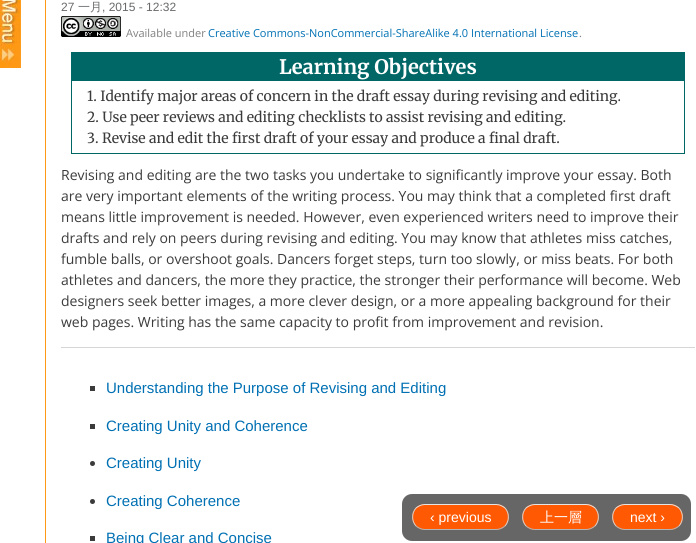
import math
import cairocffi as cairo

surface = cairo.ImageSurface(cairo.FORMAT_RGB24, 696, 543)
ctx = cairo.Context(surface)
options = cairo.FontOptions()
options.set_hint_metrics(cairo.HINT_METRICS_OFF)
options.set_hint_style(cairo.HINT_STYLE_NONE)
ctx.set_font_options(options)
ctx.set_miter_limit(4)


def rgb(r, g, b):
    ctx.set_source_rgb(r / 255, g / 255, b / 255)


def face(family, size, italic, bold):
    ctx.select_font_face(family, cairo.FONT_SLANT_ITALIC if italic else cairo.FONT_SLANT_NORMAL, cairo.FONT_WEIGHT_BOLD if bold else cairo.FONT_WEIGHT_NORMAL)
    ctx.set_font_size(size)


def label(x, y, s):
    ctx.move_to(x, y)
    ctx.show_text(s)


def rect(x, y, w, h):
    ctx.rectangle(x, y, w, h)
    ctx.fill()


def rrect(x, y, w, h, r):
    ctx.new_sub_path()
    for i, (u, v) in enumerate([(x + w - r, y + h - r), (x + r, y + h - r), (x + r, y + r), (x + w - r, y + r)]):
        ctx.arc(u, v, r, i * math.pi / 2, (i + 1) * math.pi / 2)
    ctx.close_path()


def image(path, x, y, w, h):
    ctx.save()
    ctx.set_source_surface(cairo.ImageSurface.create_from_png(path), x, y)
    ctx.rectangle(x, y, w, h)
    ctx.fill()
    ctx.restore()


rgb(255, 255, 255)
ctx.paint()
ctx.rectangle(45.5, -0.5, 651, 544)
rgb(255, 152, 21)
ctx.set_line_width(1)
ctx.stroke()
image('image0.png', 0, 0, 21, 68)
face('Liberation Sans', 12, 0, 0)
rgb(104, 105, 107)
label(61, 11, '27')
face('WenQuanYi Zen Hei Medium', 12, 0, 0)
label(78, 11, '一月')
face('Liberation Sans', 12, 0, 0)
label(102, 11, ', 2015 - 12:32')
image('image1.png', 61, 16, 60, 21)
face('Open Sans', 11, 0, 0)
rgb(128, 128, 128)
label(126, 37, 'Available under')
rgb(0, 112, 179)
label(208, 37, 'Creative Commons-NonCommercial-ShareAlike 4.0 International License')
rgb(128, 128, 128)
label(579, 37, '.')
ctx.rectangle(71.5, 52.5, 613, 101)
rgb(0, 102, 102)
ctx.stroke()
rect(72, 53, 612, 28)
face('Merriweather', 20, 0, 1)
rgb(255, 255, 255)
label(279, 74, 'Learning Objectives')
face('Merriweather', 14, 0, 0)
rgb(59, 59, 59)
label(87, 101, '1. Identify major areas of concern in the draft essay during revising and editing.')
label(87, 122, '2. Use peer reviews and editing checklists to assist revising and editing.')
label(87, 143, '3. Revise and edit the first draft of your essay and produce a final draft.')
face('Open Sans', 14, 0, 0)
label(61, 180, 'Revising and editing are the two tasks you undertake to significantly improve your essay. Both')
label(61, 201, 'are very important elements of the writing process. You may think that a completed first draft')
label(61, 222, 'means little improvement is needed. However, even experienced writers need to improve their')
label(61, 243, 'drafts and rely on peers during revising and editing. You may know that athletes miss catches,')
label(61, 264, 'fumble balls, or overshoot goals. Dancers forget steps, turn too slowly, or miss beats. For both')
label(61, 285, 'athletes and dancers, the more they practice, the stronger their performance will become. Web')
label(61, 306, 'designers seek better images, a more clever design, or a more appealing background for their')
label(61, 327, 'web pages. Writing has the same capacity to profit from improvement and revision.')
rgb(214, 214, 214)
rect(61, 347, 634, 1)
rgb(59, 59, 59)
rect(90, 386, 5, 5)
face('Liberation Sans', 15, 0, 0)
rgb(0, 112, 179)
label(106, 393, 'Understanding the Purpose of Revising and Editing')
rgb(59, 59, 59)
rect(90, 424, 5, 5)
rgb(0, 112, 179)
label(106, 431, 'Creating Unity and Coherence')
rgb(59, 59, 59)
ctx.new_path()
ctx.arc(92.5, 463.5, 2.5, 0, 2 * math.pi)
ctx.fill()
rgb(0, 112, 179)
label(106, 468, 'Creating Unity')
rgb(59, 59, 59)
ctx.new_path()
ctx.arc(92.5, 501.5, 2.5, 0, 2 * math.pi)
ctx.fill()
rgb(0, 112, 179)
label(106, 506, 'Creating Coherence')
rgb(59, 59, 59)
rect(90, 536, 5, 5)
rgb(0, 112, 179)
label(106, 543, 'Being Clear and Concise')
rgb(102, 102, 102)
rrect(402, 494, 289, 47, 10)
ctx.fill()
rgb(255, 89, 3)
rrect(412, 504, 97, 26, 13)
ctx.fill()
face('Liberation Sans', 14, 0, 0)
rgb(255, 255, 255)
label(430, 522, '‹ previous')
ctx.new_path()
ctx.move_to(416, 508)
ctx.curve_to(418.5, 506, 421.5, 504.5, 425, 504.5)
ctx.line_to(496, 504.5)
ctx.curve_to(499.5, 504.5, 502.5, 506, 505, 508)
rgb(228, 228, 228)
ctx.stroke()
ctx.new_path()
ctx.move_to(505, 508)
ctx.curve_to(509.5, 513, 509.5, 521, 505, 526)
rgb(210, 210, 210)
ctx.stroke()
ctx.new_path()
ctx.move_to(505, 526)
ctx.curve_to(502.5, 528, 499.5, 529.5, 496, 529.5)
ctx.line_to(425, 529.5)
ctx.curve_to(421.5, 529.5, 418.5, 528, 416, 526)
rgb(180, 180, 180)
ctx.stroke()
ctx.new_path()
ctx.move_to(416, 526)
ctx.curve_to(411.5, 521, 411.5, 513, 416, 508)
rgb(210, 210, 210)
ctx.stroke()
rgb(255, 89, 3)
rrect(522, 504, 77, 26, 13)
ctx.fill()
face('WenQuanYi Zen Hei Medium', 14, 0, 0)
rgb(255, 255, 255)
label(540, 522, '上一層')
ctx.new_path()
ctx.move_to(526, 508)
ctx.curve_to(528.5, 506, 531.5, 504.5, 535, 504.5)
ctx.line_to(586, 504.5)
ctx.curve_to(589.5, 504.5, 592.5, 506, 595, 508)
rgb(228, 228, 228)
ctx.stroke()
ctx.new_path()
ctx.move_to(595, 508)
ctx.curve_to(599.5, 513, 599.5, 521, 595, 526)
rgb(210, 210, 210)
ctx.stroke()
ctx.new_path()
ctx.move_to(595, 526)
ctx.curve_to(592.5, 528, 589.5, 529.5, 586, 529.5)
ctx.line_to(535, 529.5)
ctx.curve_to(531.5, 529.5, 528.5, 528, 526, 526)
rgb(180, 180, 180)
ctx.stroke()
ctx.new_path()
ctx.move_to(526, 526)
ctx.curve_to(521.5, 521, 521.5, 513, 526, 508)
rgb(210, 210, 210)
ctx.stroke()
rgb(255, 89, 3)
rrect(612, 504, 71, 26, 13)
ctx.fill()
face('Liberation Sans', 14, 0, 0)
rgb(255, 255, 255)
label(630, 522, 'next ›')
ctx.new_path()
ctx.move_to(616, 508)
ctx.curve_to(618.5, 506, 621.5, 504.5, 625, 504.5)
ctx.line_to(670, 504.5)
ctx.curve_to(673.5, 504.5, 676.5, 506, 679, 508)
rgb(228, 228, 228)
ctx.stroke()
ctx.new_path()
ctx.move_to(679, 508)
ctx.curve_to(683.5, 513, 683.5, 521, 679, 526)
rgb(210, 210, 210)
ctx.stroke()
ctx.new_path()
ctx.move_to(679, 526)
ctx.curve_to(676.5, 528, 673.5, 529.5, 670, 529.5)
ctx.line_to(625, 529.5)
ctx.curve_to(621.5, 529.5, 618.5, 528, 616, 526)
rgb(180, 180, 180)
ctx.stroke()
ctx.new_path()
ctx.move_to(616, 526)
ctx.curve_to(611.5, 521, 611.5, 513, 616, 508)
rgb(210, 210, 210)
ctx.stroke()
surface.write_to_png('render.png')
